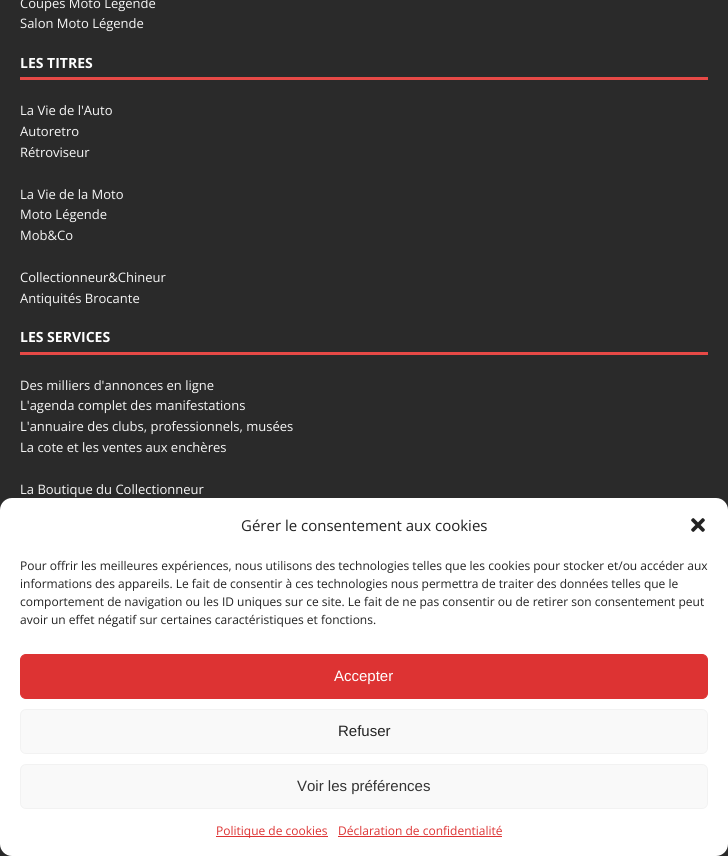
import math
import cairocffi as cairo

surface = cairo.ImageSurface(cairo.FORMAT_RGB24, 728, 856)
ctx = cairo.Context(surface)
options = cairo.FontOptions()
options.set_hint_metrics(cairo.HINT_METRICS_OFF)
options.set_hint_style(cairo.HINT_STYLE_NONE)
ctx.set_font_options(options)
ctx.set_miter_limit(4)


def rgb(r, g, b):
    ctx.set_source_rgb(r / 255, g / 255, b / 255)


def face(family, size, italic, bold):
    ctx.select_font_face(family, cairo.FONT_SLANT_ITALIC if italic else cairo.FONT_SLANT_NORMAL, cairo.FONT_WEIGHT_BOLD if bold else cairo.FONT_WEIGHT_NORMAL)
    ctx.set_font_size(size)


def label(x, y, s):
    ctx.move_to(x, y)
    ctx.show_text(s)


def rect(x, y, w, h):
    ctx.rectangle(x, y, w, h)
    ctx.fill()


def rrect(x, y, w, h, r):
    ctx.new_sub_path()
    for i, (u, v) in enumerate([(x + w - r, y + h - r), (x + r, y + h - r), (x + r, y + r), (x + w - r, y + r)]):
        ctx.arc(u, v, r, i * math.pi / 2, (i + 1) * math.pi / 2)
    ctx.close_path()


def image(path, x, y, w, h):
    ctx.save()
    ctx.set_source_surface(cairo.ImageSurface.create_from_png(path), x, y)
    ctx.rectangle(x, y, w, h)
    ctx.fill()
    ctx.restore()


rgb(42, 42, 42)
ctx.paint()
face('Open Sans', 13, 0, 0)
rgb(247, 247, 247)
label(20, 8, 'Coupes Moto Légende')
label(20, 28, 'Salon Moto Légende')
rgb(230, 73, 70)
rect(20, 77, 688, 3)
face('Open Sans', 14, 0, 1)
rgb(255, 255, 255)
label(20, 68, 'LES TITRES')
face('Open Sans', 13, 0, 0)
rgb(247, 247, 247)
label(20, 115, 'La Vie de l\'Auto')
label(20, 136, 'Autoretro')
label(20, 157, 'Rétroviseur')
label(20, 199, 'La Vie de la Moto')
label(20, 219, 'Moto Légende')
label(20, 240, 'Mob&Co')
label(20, 282, 'Collectionneur&Chineur')
label(20, 303, 'Antiquités Brocante')
rgb(230, 73, 70)
rect(20, 352, 688, 3)
face('Open Sans', 14, 0, 1)
rgb(255, 255, 255)
label(20, 342, 'LES SERVICES')
face('Open Sans', 13, 0, 0)
rgb(247, 247, 247)
label(20, 390, 'Des milliers d\'annonces en ligne')
label(20, 410, 'L\'agenda complet des manifestations')
label(20, 431, 'L\'annuaire des clubs, professionnels, musées')
label(20, 452, 'La cote et les ventes aux enchères')
label(20, 494, 'La Boutique du Collectionneur')
rgb(255, 255, 255)
rrect(0, 498, 728, 358, 12)
ctx.fill()
face('Open Sans', 15, 0, 0)
rgb(34, 34, 34)
label(241, 531, 'Gérer le consentement aux cookies')
image('image0.png', 691, 518, 14, 14)
face('Open Sans', 12, 0, 0)
label(20, 570, 'Pour offrir les meilleures expériences, nous utilisons des technologies telles que les cookies pour stocker et/ou accéder aux')
label(20, 588, 'informations des appareils. Le fait de consentir à ces technologies nous permettra de traiter des données telles que le')
label(20, 606, 'comportement de navigation ou les ID uniques sur ce site. Le fait de ne pas consentir ou de retirer son consentement peut')
label(20, 624, 'avoir un effet négatif sur certaines caractéristiques et fonctions.')
rgb(221, 51, 51)
rrect(20.5, 654.5, 687, 44, 5.5)
ctx.fill_preserve()
ctx.set_line_width(1)
ctx.stroke()
face('Liberation Sans', 15, 0, 0)
rgb(255, 255, 255)
label(334, 681, 'Accepter')
rgb(249, 249, 249)
rrect(20.5, 709.5, 687, 44, 5.5)
ctx.fill_preserve()
rgb(242, 242, 242)
ctx.stroke()
rgb(34, 34, 34)
label(338, 736, 'Refuser')
rgb(249, 249, 249)
rrect(20.5, 764.5, 687, 44, 5.5)
ctx.fill_preserve()
rgb(242, 242, 242)
ctx.stroke()
rgb(51, 51, 51)
label(297, 791, 'Voir les préférences')
rgb(221, 51, 51)
rect(216, 836, 112, 1)
face('Open Sans', 12, 0, 0)
label(216, 835, 'Politique de cookies')
label(338, 835, 'Déclaration de confidentialité')
rect(338, 836, 164, 1)
surface.write_to_png('render.png')
